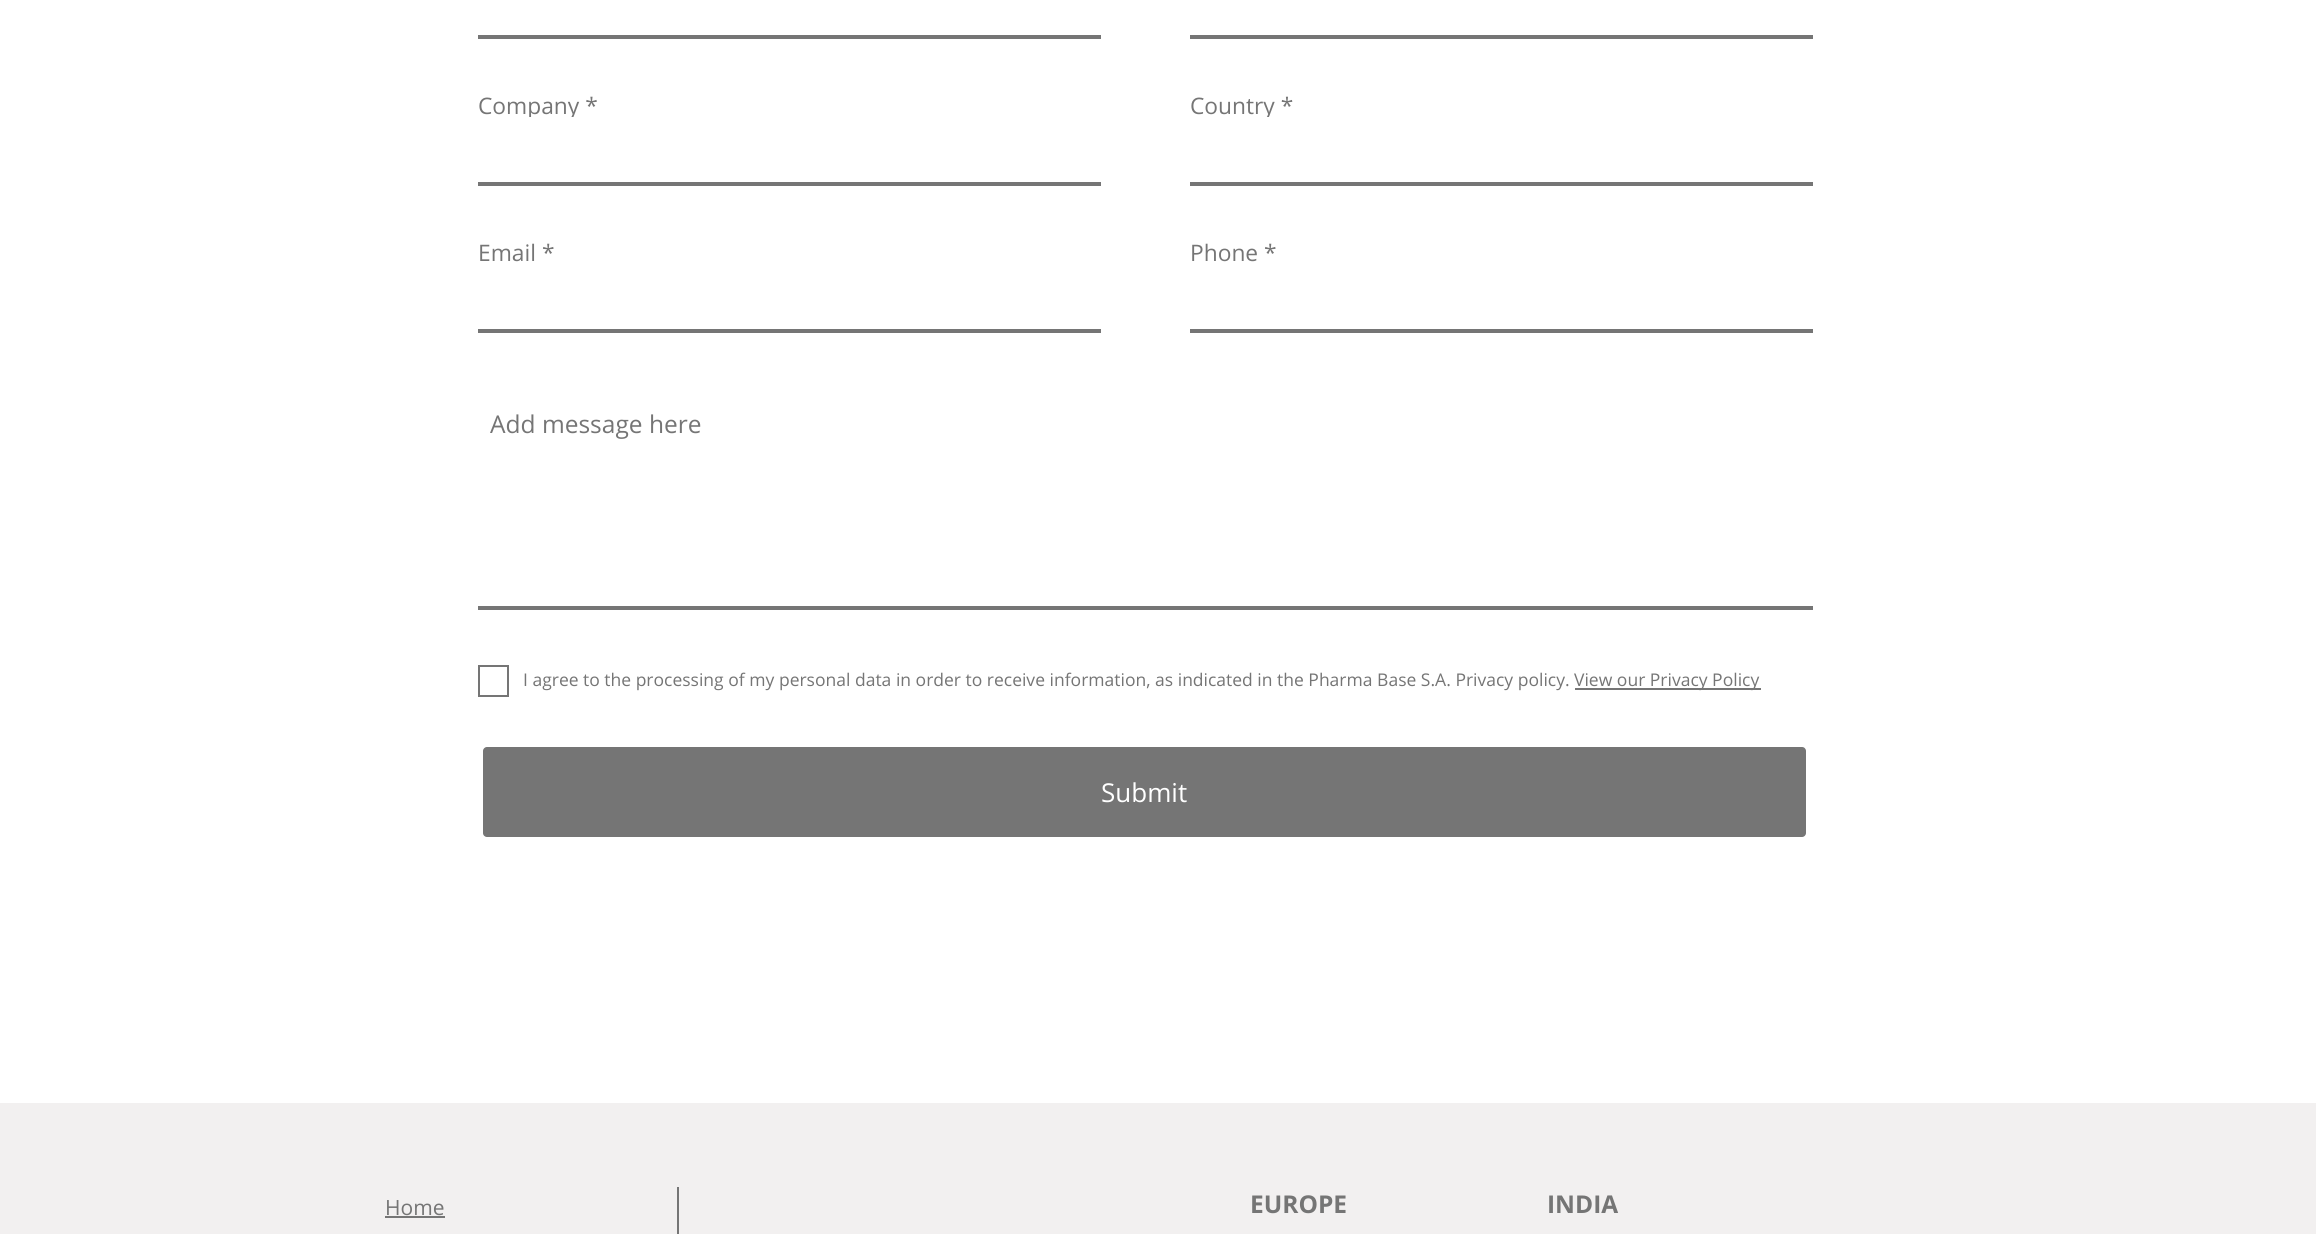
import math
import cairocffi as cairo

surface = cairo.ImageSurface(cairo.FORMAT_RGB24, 2316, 1234)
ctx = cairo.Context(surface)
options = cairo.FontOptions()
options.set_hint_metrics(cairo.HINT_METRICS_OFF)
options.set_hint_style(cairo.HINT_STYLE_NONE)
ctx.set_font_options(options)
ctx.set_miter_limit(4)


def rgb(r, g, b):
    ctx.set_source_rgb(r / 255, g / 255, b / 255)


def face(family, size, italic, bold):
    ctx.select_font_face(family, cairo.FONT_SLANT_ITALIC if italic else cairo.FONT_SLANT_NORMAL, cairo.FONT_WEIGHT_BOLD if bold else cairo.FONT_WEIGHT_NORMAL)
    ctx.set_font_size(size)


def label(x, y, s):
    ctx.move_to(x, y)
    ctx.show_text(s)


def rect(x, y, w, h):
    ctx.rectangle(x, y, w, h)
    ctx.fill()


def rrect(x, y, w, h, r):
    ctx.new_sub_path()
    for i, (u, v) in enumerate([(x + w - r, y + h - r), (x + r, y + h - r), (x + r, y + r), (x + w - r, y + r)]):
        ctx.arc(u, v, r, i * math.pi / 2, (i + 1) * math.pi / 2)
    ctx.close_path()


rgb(255, 255, 255)
ctx.paint()
rgb(117, 117, 117)
rect(478, 35, 623, 4)
rect(1190, 35, 623, 4)
face('Open Sans', 22.75, 0, 0)
label(478, 114, 'Company *')
rgb(255, 255, 255)
rect(528, 117, 46, 3)
rgb(117, 117, 117)
rect(478, 182, 623, 4)
label(1190, 114, 'Country *')
rgb(255, 255, 255)
rect(1263, 117, 6, 3)
rgb(117, 117, 117)
rect(1190, 182, 623, 4)
label(478, 261, 'Email *')
rect(478, 329, 623, 4)
label(1190, 261, 'Phone *')
rect(1190, 329, 623, 4)
rect(478, 606, 1335, 4)
face('Open Sans', 24.5, 0, 0)
label(490, 433, 'Add message here')
ctx.rectangle(479, 666, 29, 30)
ctx.stroke()
face('Open Sans', 17.5, 0, 0)
label(523, 686, 'I agree to the processing of my personal data in order to receive information, as indicated in the Pharma Base S.A. Privacy policy.')
rect(1575, 688, 186, 2)
label(1574, 686, 'View our Privacy Policy')
rrect(483, 747, 1323, 90, 4)
ctx.fill()
face('Open Sans', 26, 0, 0)
rgb(255, 255, 255)
label(1101, 802, 'Submit')
rgb(242, 240, 240)
rect(0, 1103, 2316, 131)
face('Open Sans', 21, 0, 0)
rgb(117, 117, 117)
label(385, 1215, 'Home')
rect(385, 1216, 60, 2)
rect(677, 1187, 2, 47)
face('Open Sans', 24.5, 0, 1)
label(1250, 1213, 'EUROPE')
label(1547, 1213, 'INDIA')
surface.write_to_png('render.png')
